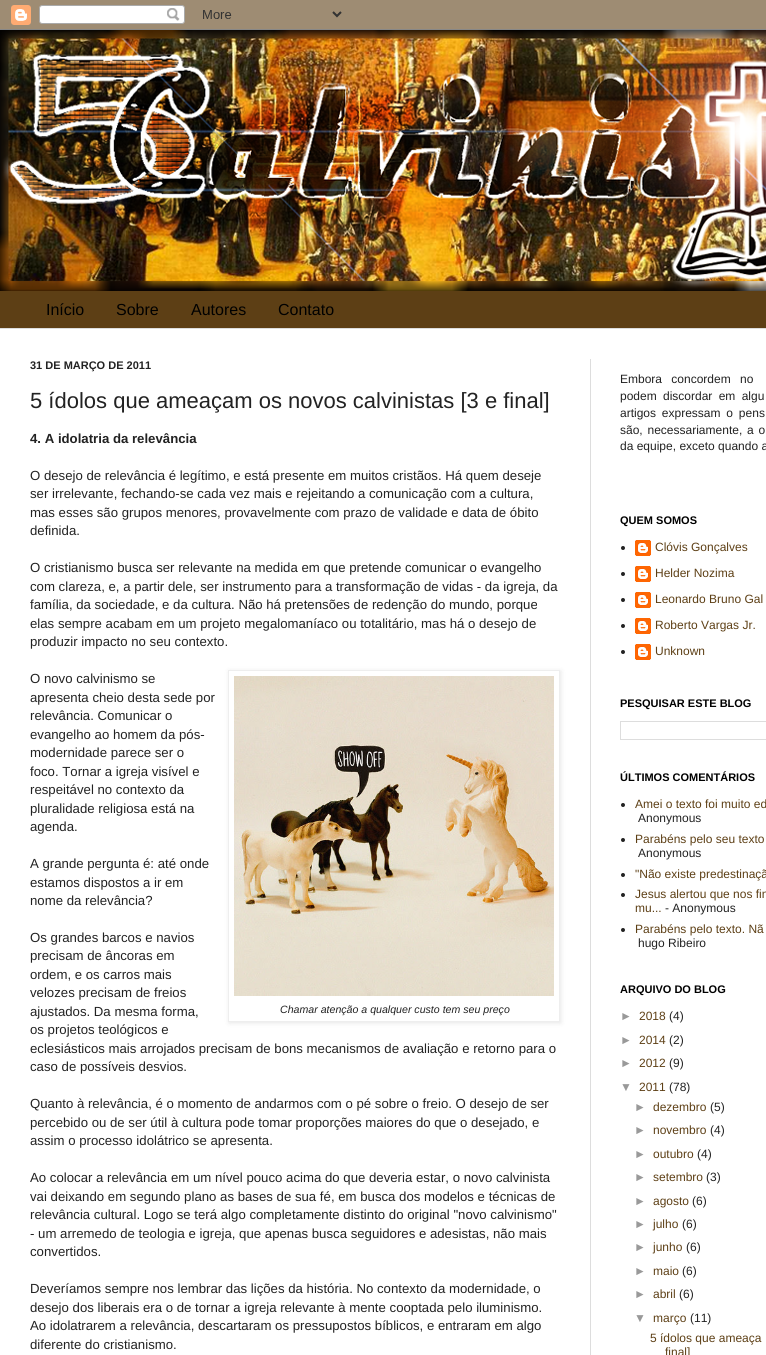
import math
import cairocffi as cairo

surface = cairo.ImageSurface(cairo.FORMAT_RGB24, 766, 1355)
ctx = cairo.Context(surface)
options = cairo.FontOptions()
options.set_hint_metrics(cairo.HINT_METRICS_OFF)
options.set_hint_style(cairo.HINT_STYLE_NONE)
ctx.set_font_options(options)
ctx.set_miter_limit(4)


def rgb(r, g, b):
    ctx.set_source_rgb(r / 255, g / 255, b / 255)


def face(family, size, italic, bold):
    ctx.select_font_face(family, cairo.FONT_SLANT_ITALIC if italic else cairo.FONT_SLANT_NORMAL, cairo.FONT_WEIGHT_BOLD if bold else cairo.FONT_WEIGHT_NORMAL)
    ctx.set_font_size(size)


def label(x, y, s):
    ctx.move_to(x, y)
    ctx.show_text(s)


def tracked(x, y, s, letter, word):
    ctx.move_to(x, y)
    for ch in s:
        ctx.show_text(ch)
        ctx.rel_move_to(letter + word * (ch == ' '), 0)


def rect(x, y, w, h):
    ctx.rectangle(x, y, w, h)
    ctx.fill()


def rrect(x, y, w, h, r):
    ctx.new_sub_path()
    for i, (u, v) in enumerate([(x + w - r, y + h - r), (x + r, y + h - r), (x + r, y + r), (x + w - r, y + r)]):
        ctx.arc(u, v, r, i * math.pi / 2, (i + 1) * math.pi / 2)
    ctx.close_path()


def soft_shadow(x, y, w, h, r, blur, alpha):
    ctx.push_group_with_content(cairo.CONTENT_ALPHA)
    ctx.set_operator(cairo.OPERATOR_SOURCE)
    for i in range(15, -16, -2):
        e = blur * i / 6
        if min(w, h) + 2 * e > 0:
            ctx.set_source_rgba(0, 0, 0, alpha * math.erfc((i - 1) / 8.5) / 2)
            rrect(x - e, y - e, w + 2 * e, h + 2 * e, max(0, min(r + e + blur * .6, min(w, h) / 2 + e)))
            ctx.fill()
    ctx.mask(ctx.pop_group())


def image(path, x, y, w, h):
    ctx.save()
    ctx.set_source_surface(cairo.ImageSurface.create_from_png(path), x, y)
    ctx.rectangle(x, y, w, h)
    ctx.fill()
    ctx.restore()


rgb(93, 63, 21)
ctx.paint()
image('image0.png', 0, 0, 766, 30)
image('image1.png', 0, 30, 766, 261)
face('Liberation Sans', 16, 0, 0)
rgb(0, 0, 0)
label(46, 315, 'Início')
label(116, 315, 'Sobre')
label(191, 315, 'Autores')
label(278, 315, 'Contato')
rgb(255, 255, 255)
rect(0, 329, 766, 1026)
rgb(221, 221, 221)
rect(0, 328, 766, 1)
rect(590, 359, 1, 996)
face('Liberation Sans', 11, 0, 1)
rgb(34, 34, 34)
label(30, 369, '31 DE MARÇO DE 2011')
face('Liberation Sans', 22, 0, 0)
label(30, 408, '5 ídolos que ameaçam os novos calvinistas [3 e final]')
face('Liberation Sans', 13.2, 0, 1)
label(30, 443, '4. A idolatria da relevância')
face('Liberation Sans', 13.2, 0, 0)
label(30, 480, 'O desejo de relevância é legítimo, e está presente em muitos cristãos. Há quem deseje')
label(30, 498, 'ser irrelevante, fechando-se cada vez mais e rejeitando a comunicação com a cultura,')
label(30, 517, 'mas esses são grupos menores, provavelmente com prazo de validade e data de óbito')
label(30, 535, 'definida.')
label(30, 572, 'O cristianismo busca ser relevante na medida em que pretende comunicar o evangelho')
label(30, 591, 'com clareza, e, a partir dele, ser instrumento para a transformação de vidas - da igreja, da')
label(30, 609, 'família, da sociedade, e da cultura. Não há pretensões de redenção do mundo, porque')
label(30, 628, 'elas sempre acabam em um projeto megalomaníaco ou totalitário, mas há o desejo de')
label(30, 646, 'produzir impacto no seu contexto.')
label(30, 683, 'O novo calvinismo se')
label(30, 702, 'apresenta cheio desta sede por')
label(30, 720, 'relevância. Comunicar o')
label(30, 739, 'evangelho ao homem da pós-')
label(30, 757, 'modernidade parece ser o')
label(30, 776, 'foco. Tornar a igreja visível e')
label(30, 794, 'respeitável no contexto da')
label(30, 813, 'pluralidade religiosa está na')
label(30, 831, 'agenda.')
label(30, 868, 'A grande pergunta é: até onde')
label(30, 887, 'estamos dispostos a ir em')
label(30, 905, 'nome da relevância?')
label(30, 942, 'Os grandes barcos e navios')
label(30, 960, 'precisam de âncoras em')
label(30, 979, 'ordem, e os carros mais')
label(30, 997, 'velozes precisam de freios')
label(30, 1016, 'ajustados. Da mesma forma,')
ctx.save()
ctx.set_fill_rule(cairo.FILL_RULE_EVEN_ODD)
ctx.new_path()
ctx.move_to(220, 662)
ctx.line_to(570, 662)
ctx.line_to(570, 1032)
ctx.line_to(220, 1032)
ctx.close_path()
ctx.move_to(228, 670)
ctx.line_to(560, 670)
ctx.line_to(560, 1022)
ctx.line_to(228, 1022)
ctx.close_path()
ctx.clip()
rgb(0, 0, 0)
soft_shadow(229, 671, 332, 352, 0, 2.5, 0.1)
ctx.restore()
ctx.rectangle(228.5, 670.5, 331, 351)
rgb(238, 238, 238)
ctx.set_line_width(1)
ctx.stroke()
image('image2.png', 234, 676, 320, 320)
face('Liberation Sans', 10.6, 1, 0)
rgb(34, 34, 34)
label(280, 1013, 'Chamar atenção a qualquer custo tem seu preço')
face('Liberation Sans', 13.2, 0, 0)
label(30, 1034, 'os projetos teológicos e')
label(30, 1053, 'eclesiásticos mais arrojados precisam de bons mecanismos de avaliação e retorno para o')
label(30, 1071, 'caso de possíveis desvios.')
label(30, 1108, 'Quanto à relevância, é o momento de andarmos com o pé sobre o freio. O desejo de ser')
label(30, 1127, 'percebido ou de ser útil à cultura pode tomar proporções maiores do que o desejado, e')
label(30, 1145, 'assim o processo idolátrico se apresenta.')
label(30, 1182, 'Ao colocar a relevância em um nível pouco acima do que deveria estar, o novo calvinista')
label(30, 1201, 'vai deixando em segundo plano as bases de sua fé, em busca dos modelos e técnicas de')
label(30, 1219, 'relevância cultural. Logo se terá algo completamente distinto do original "novo calvinismo"')
label(30, 1238, '- um arremedo de teologia e igreja, que apenas busca seguidores e adesistas, não mais')
label(30, 1256, 'convertidos.')
label(30, 1293, 'Deveríamos sempre nos lembrar das lições da história. No contexto da modernidade, o')
label(30, 1312, 'desejo dos liberais era o de tornar a igreja relevante à mente cooptada pelo iluminismo.')
label(30, 1330, 'Ao idolatrarem a relevância, descartaram os pressupostos bíblicos, e entraram em algo')
label(30, 1349, 'diferente do cristianismo.')
face('Liberation Sans', 12, 0, 0)
tracked(620, 383, 'Embora concordem no', 0, 6)
tracked(620, 400, 'podem discordar em algu', 0, 3)
tracked(620, 417, 'artigos expressam o pens', 0, 2.5)
tracked(620, 434, 'são, necessariamente, a o', 0, 1.5)
label(620, 450, 'da equipe, exceto quando a')
face('Liberation Sans', 11, 0, 1)
rgb(0, 0, 0)
label(620, 524, 'QUEM SOMOS')
rgb(34, 34, 34)
ctx.new_path()
ctx.arc(623, 548, 2, 0, 2 * math.pi)
ctx.fill()
image('image3.png', 635, 540, 16, 16)
face('Liberation Sans', 12, 0, 0)
rgb(93, 63, 21)
label(655, 551, 'Clóvis Gonçalves')
rgb(34, 34, 34)
ctx.new_path()
ctx.arc(623, 574, 2, 0, 2 * math.pi)
ctx.fill()
image('image3.png', 635, 566, 16, 16)
rgb(93, 63, 21)
label(655, 577, 'Helder Nozima')
rgb(34, 34, 34)
ctx.new_path()
ctx.arc(623, 600, 2, 0, 2 * math.pi)
ctx.fill()
image('image3.png', 635, 592, 16, 16)
rgb(93, 63, 21)
label(655, 603, 'Leonardo Bruno Gal')
rgb(34, 34, 34)
ctx.new_path()
ctx.arc(623, 626, 2, 0, 2 * math.pi)
ctx.fill()
image('image3.png', 635, 618, 16, 16)
rgb(93, 63, 21)
label(655, 629, 'Roberto Vargas Jr.')
rgb(34, 34, 34)
ctx.new_path()
ctx.arc(623, 652, 2, 0, 2 * math.pi)
ctx.fill()
image('image3.png', 635, 644, 16, 16)
rgb(93, 63, 21)
label(655, 655, 'Unknown')
face('Liberation Sans', 11, 0, 1)
rgb(0, 0, 0)
label(620, 707, 'PESQUISAR ESTE BLOG')
ctx.rectangle(620.5, 721.5, 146, 18)
rgb(221, 221, 221)
ctx.stroke()
rgb(0, 0, 0)
label(620, 781, 'ÚLTIMOS COMENTÁRIOS')
rgb(34, 34, 34)
ctx.new_path()
ctx.arc(623, 805, 2, 0, 2 * math.pi)
ctx.fill()
face('Liberation Sans', 12, 0, 0)
rgb(93, 63, 21)
label(635, 808, 'Amei o texto foi muito ed')
rgb(34, 34, 34)
label(638, 822, 'Anonymous')
ctx.new_path()
ctx.arc(623, 840, 2, 0, 2 * math.pi)
ctx.fill()
rgb(93, 63, 21)
label(635, 843, 'Parabéns pelo seu texto')
rgb(34, 34, 34)
label(638, 857, 'Anonymous')
ctx.new_path()
ctx.arc(623, 875, 2, 0, 2 * math.pi)
ctx.fill()
rgb(93, 63, 21)
label(635, 878, '"Não existe predestinaçã')
rgb(34, 34, 34)
ctx.new_path()
ctx.arc(623, 895, 2, 0, 2 * math.pi)
ctx.fill()
rgb(93, 63, 21)
label(635, 898, 'Jesus alertou que nos fin')
label(635, 912, 'mu...')
rgb(34, 34, 34)
label(665, 912, '- Anonymous')
ctx.new_path()
ctx.arc(623, 930, 2, 0, 2 * math.pi)
ctx.fill()
rgb(93, 63, 21)
label(635, 933, 'Parabéns pelo texto. Nã')
rgb(34, 34, 34)
label(638, 947, 'hugo Ribeiro')
face('Liberation Sans', 11, 0, 1)
rgb(0, 0, 0)
label(620, 993, 'ARQUIVO DO BLOG')
face('Liberation Sans', 12, 0, 0)
rgb(153, 153, 153)
label(620, 1020, '►')
rgb(93, 63, 21)
label(639, 1020, '2018')
rgb(34, 34, 34)
label(669, 1020, '(4)')
rgb(153, 153, 153)
label(620, 1044, '►')
rgb(93, 63, 21)
label(639, 1044, '2014')
rgb(34, 34, 34)
label(669, 1044, '(2)')
rgb(153, 153, 153)
label(620, 1067, '►')
rgb(93, 63, 21)
label(639, 1067, '2012')
rgb(34, 34, 34)
label(669, 1067, '(9)')
rgb(153, 153, 153)
label(620, 1091, '▼')
rgb(93, 63, 21)
label(639, 1091, '2011')
rgb(34, 34, 34)
label(669, 1091, '(78)')
rgb(153, 153, 153)
label(634, 1111, '►')
rgb(93, 63, 21)
label(653, 1111, 'dezembro')
rgb(34, 34, 34)
label(710, 1111, '(5)')
rgb(153, 153, 153)
label(634, 1134, '►')
rgb(93, 63, 21)
label(653, 1134, 'novembro')
rgb(34, 34, 34)
label(710, 1134, '(4)')
rgb(153, 153, 153)
label(634, 1158, '►')
rgb(93, 63, 21)
label(653, 1158, 'outubro')
rgb(34, 34, 34)
label(697, 1158, '(4)')
rgb(153, 153, 153)
label(634, 1181, '►')
rgb(93, 63, 21)
label(653, 1181, 'setembro')
rgb(34, 34, 34)
label(706, 1181, '(3)')
rgb(153, 153, 153)
label(634, 1205, '►')
rgb(93, 63, 21)
label(653, 1205, 'agosto')
rgb(34, 34, 34)
label(692, 1205, '(6)')
rgb(153, 153, 153)
label(634, 1228, '►')
rgb(93, 63, 21)
label(653, 1228, 'julho')
rgb(34, 34, 34)
label(682, 1228, '(6)')
rgb(153, 153, 153)
label(634, 1251, '►')
rgb(93, 63, 21)
label(653, 1251, 'junho')
rgb(34, 34, 34)
label(686, 1251, '(6)')
rgb(153, 153, 153)
label(634, 1275, '►')
rgb(93, 63, 21)
label(653, 1275, 'maio')
rgb(34, 34, 34)
label(682, 1275, '(6)')
rgb(153, 153, 153)
label(634, 1298, '►')
rgb(93, 63, 21)
label(653, 1298, 'abril')
rgb(34, 34, 34)
label(679, 1298, '(6)')
rgb(153, 153, 153)
label(634, 1322, '▼')
rgb(93, 63, 21)
label(653, 1322, 'março')
rgb(34, 34, 34)
label(690, 1322, '(11)')
rgb(93, 63, 21)
label(650, 1342, '5 ídolos que ameaça')
label(665, 1356, 'final]')
surface.write_to_png('render.png')
